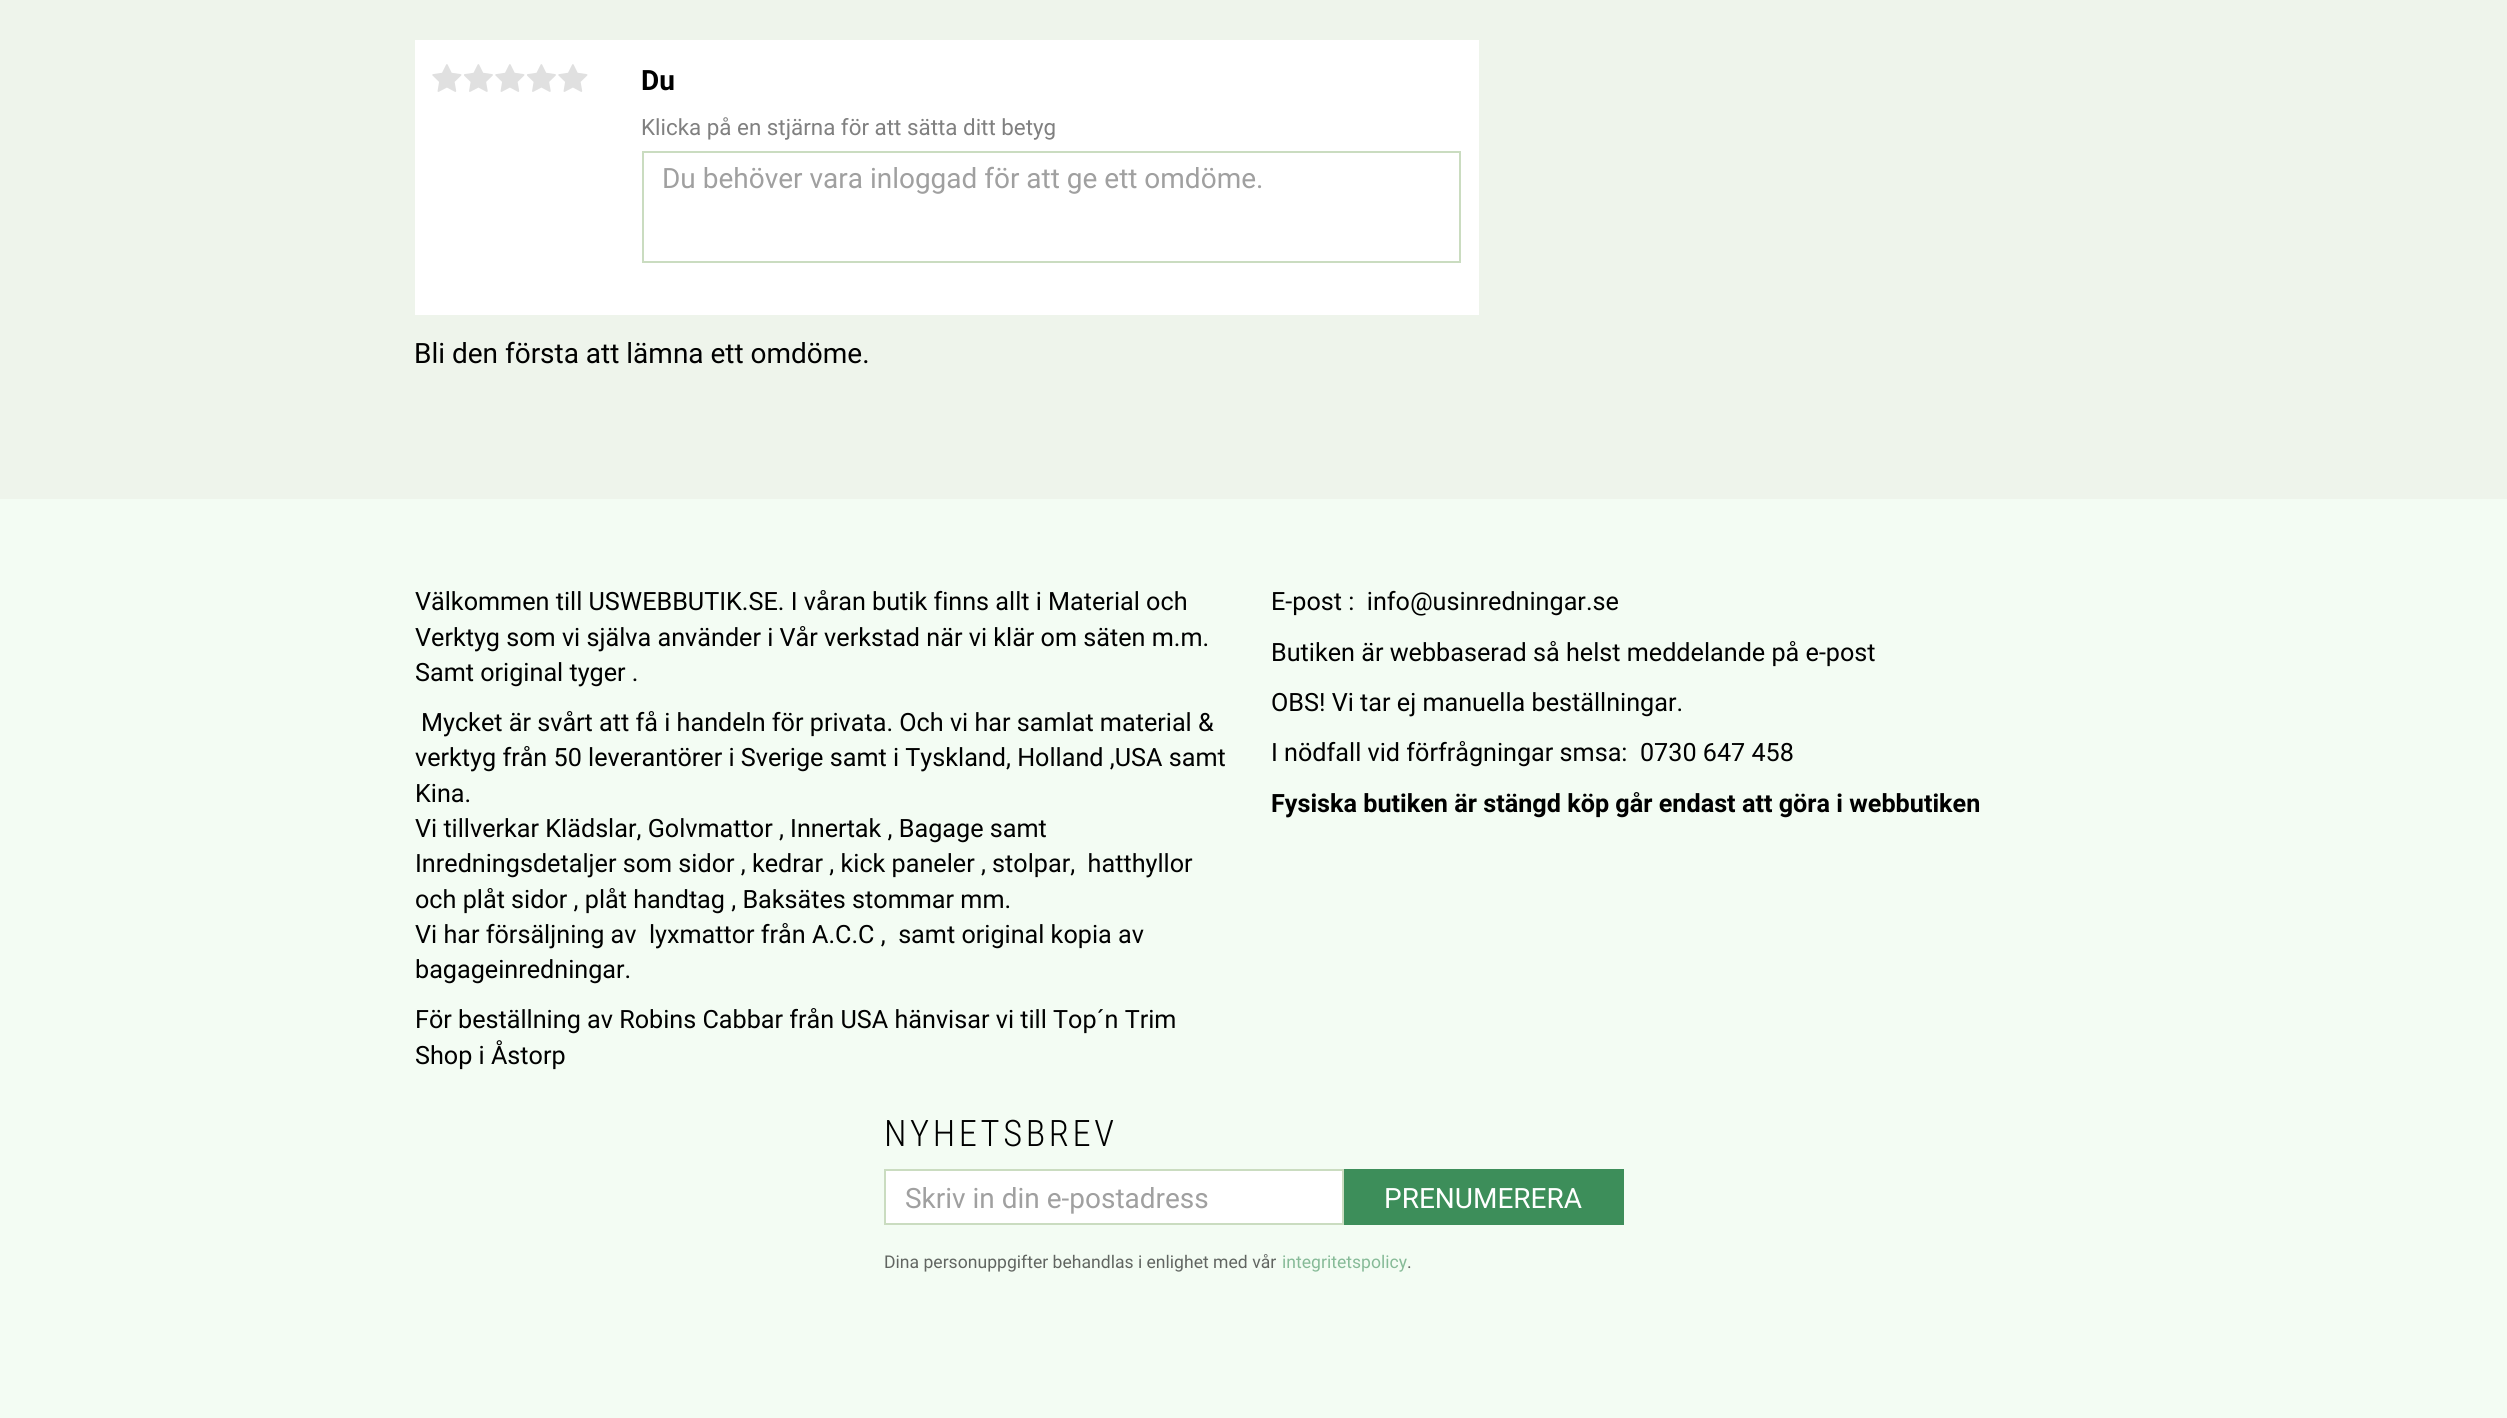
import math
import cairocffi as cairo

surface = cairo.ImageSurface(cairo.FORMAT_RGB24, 2507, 1418)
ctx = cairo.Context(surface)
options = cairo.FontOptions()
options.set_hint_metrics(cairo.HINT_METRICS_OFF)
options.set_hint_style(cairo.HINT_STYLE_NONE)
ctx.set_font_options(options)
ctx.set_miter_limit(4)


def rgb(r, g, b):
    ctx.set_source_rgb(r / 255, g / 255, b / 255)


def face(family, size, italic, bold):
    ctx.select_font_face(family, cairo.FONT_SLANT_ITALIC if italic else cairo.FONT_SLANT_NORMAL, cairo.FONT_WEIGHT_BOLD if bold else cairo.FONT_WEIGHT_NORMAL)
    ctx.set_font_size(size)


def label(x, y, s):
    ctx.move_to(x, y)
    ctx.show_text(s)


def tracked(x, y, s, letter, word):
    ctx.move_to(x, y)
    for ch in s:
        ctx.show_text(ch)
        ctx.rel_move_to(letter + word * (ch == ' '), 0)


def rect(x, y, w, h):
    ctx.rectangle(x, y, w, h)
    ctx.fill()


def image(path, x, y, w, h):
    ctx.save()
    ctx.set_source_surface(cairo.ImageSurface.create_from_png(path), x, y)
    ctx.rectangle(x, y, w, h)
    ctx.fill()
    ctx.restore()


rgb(238, 244, 235)
ctx.paint()
rgb(255, 255, 255)
rect(415, 40, 1064, 275)
image('image0.png', 432, 64, 30, 28)
image('image1.png', 464, 64, 29, 28)
image('image0.png', 495, 64, 30, 28)
image('image1.png', 527, 64, 29, 28)
image('image0.png', 558, 64, 30, 28)
face('Roboto', 28, 0, 1)
rgb(0, 0, 0)
label(641, 90, 'Du')
face('Roboto', 22.4, 0, 0)
rgb(128, 128, 128)
label(641, 135, 'Klicka på en stjärna för att sätta ditt betyg')
ctx.rectangle(643, 152, 817, 110)
rgb(202, 220, 192)
ctx.stroke()
face('Roboto', 28, 0, 0)
rgb(160, 160, 160)
label(662, 188, 'Du behöver vara inloggad för att ge ett omdöme.')
rgb(0, 0, 0)
label(414, 363, 'Bli den första att lämna ett omdöme.')
rgb(243, 252, 243)
rect(0, 499, 2507, 919)
face('Roboto', 25.2, 0, 0)
rgb(0, 0, 0)
label(415, 610, 'Välkommen till USWEBBUTIK.SE. I våran butik finns allt i Material och')
label(415, 646, 'Verktyg som vi själva använder i Vår verkstad när vi klär om säten m.m.')
label(415, 681, 'Samt original tyger .')
label(421, 731, 'Mycket är svårt att få i handeln för privata. Och vi har samlat material &')
label(415, 766, 'verktyg från 50 leverantörer i Sverige samt i Tyskland, Holland ,USA samt')
label(415, 802, 'Kina.')
label(415, 837, 'Vi tillverkar Klädslar, Golvmattor , Innertak , Bagage samt')
label(415, 872, 'Inredningsdetaljer som sidor , kedrar , kick paneler , stolpar,  hatthyllor')
label(415, 908, 'och plåt sidor , plåt handtag , Baksätes stommar mm.')
label(415, 943, 'Vi har försäljning av  lyxmattor från A.C.C ,  samt original kopia av')
label(415, 978, 'bagageinredningar.')
label(415, 1028, 'För beställning av Robins Cabbar från USA hänvisar vi till Top´n Trim')
label(415, 1064, 'Shop i Åstorp')
label(1271, 610, 'E-post :  info@usinredningar.se')
label(1271, 661, 'Butiken är webbaserad så helst meddelande på e-post')
label(1271, 711, 'OBS! Vi tar ej manuella beställningar.')
label(1271, 761, 'I nödfall vid förfrågningar smsa:  0730 647 458')
face('Roboto', 25.2, 0, 1)
label(1271, 812, 'Fysiska butiken är stängd köp går endast att göra i webbutiken')
face('Roboto Condensed Light', 36.5, 0, 0)
tracked(884, 1146, 'NYHETSBREV', 3.6, 0)
rgb(255, 255, 255)
ctx.rectangle(885, 1170, 458, 54)
ctx.fill_preserve()
rgb(202, 220, 192)
ctx.stroke()
face('Roboto', 28, 0, 0)
rgb(160, 160, 160)
label(905, 1208, 'Skriv in din e-postadress')
rgb(61, 142, 90)
rect(1344, 1169, 280, 56)
rgb(255, 255, 255)
label(1384, 1208, 'PRENUMERERA')
face('Roboto', 17.6, 0, 0)
rgb(97, 101, 97)
label(884, 1268, 'Dina personuppgifter behandlas i enlighet med vår')
rgb(134, 186, 151)
label(1282, 1268, 'integritetspolicy')
rgb(97, 101, 97)
label(1407, 1268, '.')
surface.write_to_png('render.png')
